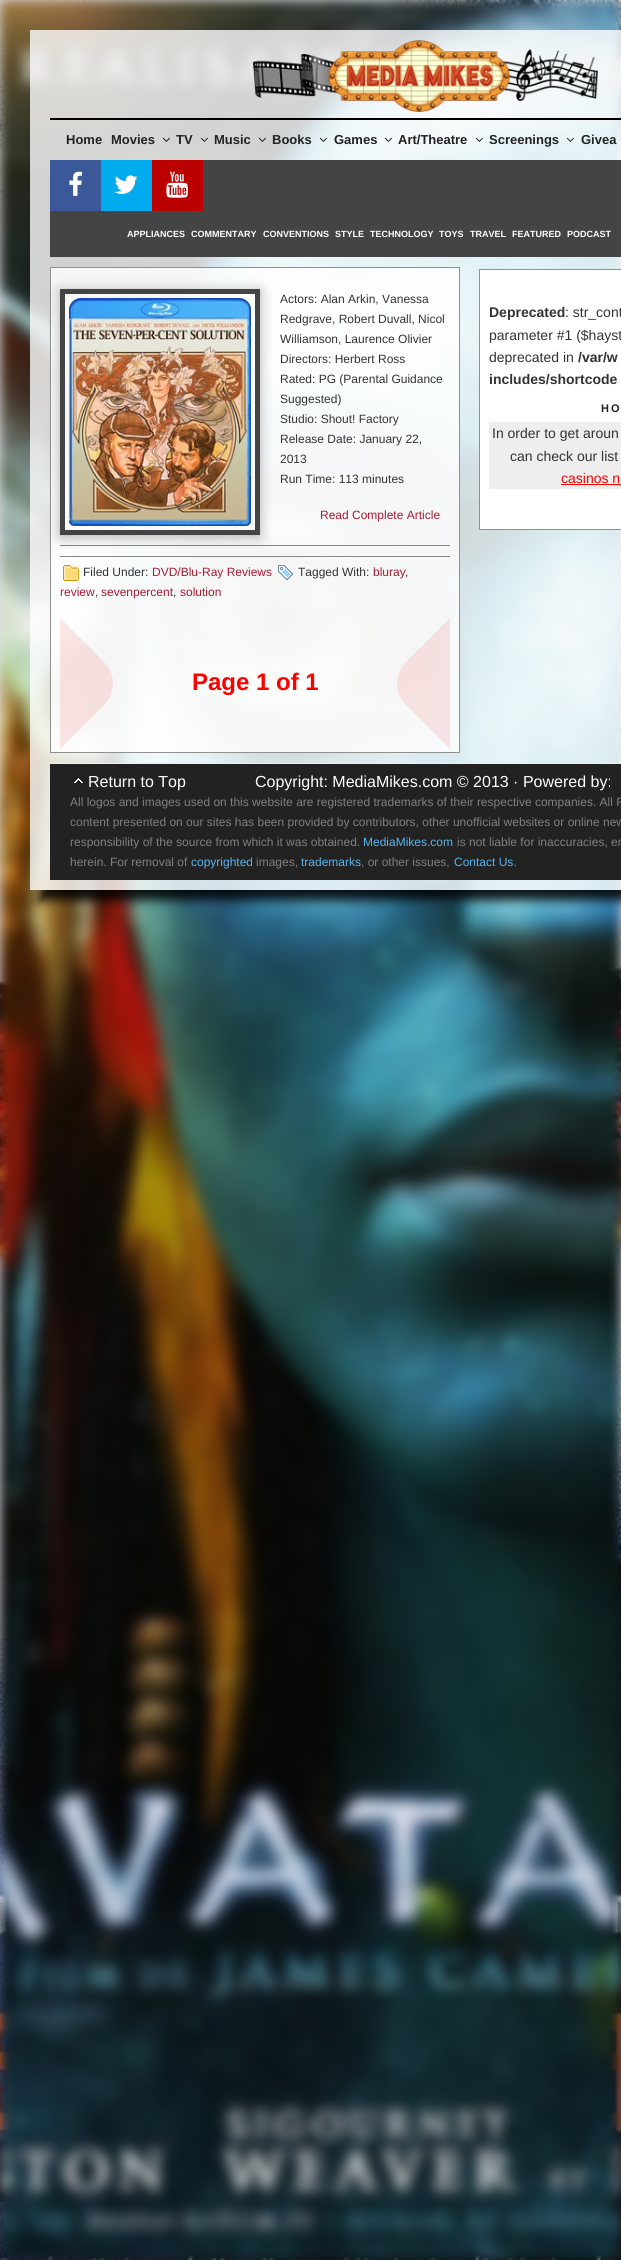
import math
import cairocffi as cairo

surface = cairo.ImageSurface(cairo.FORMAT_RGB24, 621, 2260)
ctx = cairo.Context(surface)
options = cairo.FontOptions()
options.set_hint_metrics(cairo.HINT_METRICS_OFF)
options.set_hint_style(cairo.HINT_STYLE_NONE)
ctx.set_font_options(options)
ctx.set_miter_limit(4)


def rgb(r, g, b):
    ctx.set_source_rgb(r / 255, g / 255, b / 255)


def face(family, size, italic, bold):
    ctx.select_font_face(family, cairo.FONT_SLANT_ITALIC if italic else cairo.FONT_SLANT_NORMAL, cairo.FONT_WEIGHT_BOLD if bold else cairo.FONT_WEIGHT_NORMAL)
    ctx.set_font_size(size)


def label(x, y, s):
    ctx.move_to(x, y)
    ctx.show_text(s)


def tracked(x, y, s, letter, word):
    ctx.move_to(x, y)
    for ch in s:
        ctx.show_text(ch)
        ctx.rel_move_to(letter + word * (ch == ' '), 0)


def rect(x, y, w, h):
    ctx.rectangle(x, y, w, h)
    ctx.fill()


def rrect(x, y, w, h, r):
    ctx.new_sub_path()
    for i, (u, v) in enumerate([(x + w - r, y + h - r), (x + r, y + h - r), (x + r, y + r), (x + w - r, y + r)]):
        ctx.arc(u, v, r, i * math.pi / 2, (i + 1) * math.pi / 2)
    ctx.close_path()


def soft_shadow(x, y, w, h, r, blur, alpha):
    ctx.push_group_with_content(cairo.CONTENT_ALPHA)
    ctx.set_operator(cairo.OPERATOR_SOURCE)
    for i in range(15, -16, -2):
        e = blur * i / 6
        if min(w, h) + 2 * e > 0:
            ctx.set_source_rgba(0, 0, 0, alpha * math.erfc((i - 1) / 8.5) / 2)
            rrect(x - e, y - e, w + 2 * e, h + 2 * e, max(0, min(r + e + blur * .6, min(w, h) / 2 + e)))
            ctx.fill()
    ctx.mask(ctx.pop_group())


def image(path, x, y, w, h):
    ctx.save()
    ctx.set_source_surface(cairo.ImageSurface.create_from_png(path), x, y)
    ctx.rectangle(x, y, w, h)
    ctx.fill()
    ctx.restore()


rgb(255, 255, 255)
ctx.paint()
image('image0.png', 0, 0, 621, 2260)
image('image1.png', 0, 0, 621, 2260)
ctx.save()
ctx.rectangle(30, 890, 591, 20)
ctx.clip()
rgb(0, 0, 0)
soft_shadow(40, 40, 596, 860, 0, 5, 0.88)
ctx.restore()
ctx.set_source_rgba(1, 1, 1, 0.8)
rect(30, 30, 591, 860)
image('image2.png', 253, 40, 345, 72)
rgb(0, 0, 0)
rect(50, 118, 571, 2)
face('Liberation Sans', 13, 0, 1)
rgb(34, 34, 34)
label(66, 144, 'Home')
label(111, 144, 'Movies')
image('image3.png', 162, 137, 8, 5)
label(176, 144, 'TV')
image('image4.png', 200, 137, 8, 5)
label(214, 144, 'Music')
image('image5.png', 258, 137, 8, 5)
label(272, 144, 'Books')
image('image6.png', 319, 137, 8, 5)
label(334, 144, 'Games')
image('image7.png', 384, 137, 8, 5)
label(398, 144, 'Art/Theatre')
image('image8.png', 475, 137, 8, 5)
label(489, 144, 'Screenings')
image('image9.png', 566, 137, 8, 5)
label(581, 144, 'Givea')
rgb(68, 68, 68)
rect(50, 160, 571, 97)
rgb(59, 89, 152)
rect(50, 160, 51, 51)
image('image10.png', 69, 171, 13, 25)
rgb(0, 172, 237)
rect(101, 160, 51, 51)
image('image11.png', 114, 175, 24, 19)
rgb(187, 0, 0)
rect(152, 160, 51, 51)
image('image12.png', 166, 171, 22, 27)
face('Liberation Sans', 9, 0, 1)
rgb(255, 255, 255)
label(127, 237, 'APPLIANCES')
label(191, 237, 'COMMENTARY')
label(263, 237, 'CONVENTIONS')
label(335, 237, 'STYLE')
label(370, 237, 'TECHNOLOGY')
label(439, 237, 'TOYS')
label(470, 237, 'TRAVEL')
label(512, 237, 'FEATURED')
label(567, 237, 'PODCAST')
ctx.set_source_rgba(1, 1, 1, 0.8)
ctx.rectangle(50.5, 267.5, 409, 485)
ctx.fill_preserve()
rgb(144, 144, 144)
ctx.set_line_width(1)
ctx.stroke()
rgb(136, 136, 136)
rect(60, 545, 390, 1)
rect(60, 556, 390, 1)
ctx.save()
ctx.set_fill_rule(cairo.FILL_RULE_EVEN_ODD)
ctx.new_path()
ctx.move_to(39, 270)
ctx.line_to(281, 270)
ctx.line_to(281, 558)
ctx.line_to(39, 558)
ctx.close_path()
ctx.move_to(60, 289)
ctx.line_to(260, 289)
ctx.line_to(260, 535)
ctx.line_to(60, 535)
ctx.close_path()
ctx.clip()
rgb(0, 0, 0)
soft_shadow(60, 291, 200, 246, 0, 6.5, 0.3)
ctx.restore()
ctx.rectangle(62.5, 291.5, 195, 241)
rgb(68, 68, 68)
ctx.set_line_width(5)
ctx.stroke()
image('image13.png', 69, 298, 182, 228)
face('Liberation Sans', 12, 0, 0)
rgb(51, 51, 51)
label(280, 303, 'Actors: Alan Arkin, Vanessa')
label(280, 323, 'Redgrave, Robert Duvall, Nicol')
label(280, 343, 'Williamson, Laurence Olivier')
label(280, 363, 'Directors: Herbert Ross')
label(280, 383, 'Rated: PG (Parental Guidance')
label(280, 403, 'Suggested)')
label(280, 423, 'Studio: Shout! Factory')
label(280, 443, 'Release Date: January 22,')
label(280, 463, '2013')
label(280, 483, 'Run Time: 113 minutes')
rgb(169, 27, 51)
label(320, 519, 'Read Complete Article')
image('image14.png', 63, 565, 16, 16)
rgb(51, 51, 51)
label(83, 576, 'Filed Under:')
rgb(169, 27, 51)
label(152, 576, 'DVD/Blu-Ray Reviews')
image('image15.png', 278, 565, 16, 16)
rgb(51, 51, 51)
label(298, 576, 'Tagged With:')
rgb(169, 27, 51)
label(373, 576, 'bluray')
rgb(51, 51, 51)
label(405, 576, ',')
rgb(169, 27, 51)
label(60, 596, 'review')
rgb(51, 51, 51)
label(95, 596, ',')
rgb(169, 27, 51)
label(101, 596, 'sevenpercent')
rgb(51, 51, 51)
label(173, 596, ',')
rgb(169, 27, 51)
label(180, 596, 'solution')
ctx.save()
ctx.rectangle(60, 613, 55, 138)
ctx.clip()
ctx.set_source_rgba(0.906, 0.075, 0.071, 0.1)
ctx.new_path()
ctx.move_to(55, 613)
ctx.line_to(104, 662)
ctx.curve_to(116, 674, 116, 693, 104, 705)
ctx.line_to(55, 754)
ctx.line_to(6, 705)
ctx.curve_to(-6, 693, -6, 674, 6, 662)
ctx.close_path()
ctx.fill()
ctx.restore()
face('Liberation Sans', 24, 0, 1)
rgb(255, 0, 0)
label(192, 690, 'Page 1 of 1')
ctx.save()
ctx.rectangle(395, 613, 55, 138)
ctx.clip()
ctx.set_source_rgba(0.906, 0.075, 0.071, 0.1)
ctx.new_path()
ctx.move_to(455, 613)
ctx.line_to(504, 662)
ctx.curve_to(516, 674, 516, 693, 504, 705)
ctx.line_to(455, 754)
ctx.line_to(406, 705)
ctx.curve_to(394, 693, 394, 674, 406, 662)
ctx.close_path()
ctx.fill()
ctx.restore()
rgb(255, 255, 255)
ctx.rectangle(479.5, 269.5, 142, 260)
ctx.fill_preserve()
rgb(144, 144, 144)
ctx.set_line_width(1)
ctx.stroke()
face('Liberation Sans', 14, 0, 1)
rgb(51, 51, 51)
label(489, 317, 'Deprecated')
face('Liberation Sans', 14, 0, 0)
label(565, 317, ': str_cont')
label(489, 340, 'parameter #1 ($hayst')
label(489, 362, 'deprecated in')
face('Liberation Sans', 14, 0, 1)
label(578, 362, '/var/w')
label(489, 384, 'includes/shortcode')
face('Liberation Sans', 11, 0, 1)
rgb(34, 34, 34)
tracked(601, 412, 'HO', 2, 0)
rgb(238, 238, 238)
rect(489, 422, 132, 67)
face('Liberation Sans', 14, 0, 0)
rgb(51, 51, 51)
label(492, 438, 'In order to get aroun')
label(510, 461, 'can check our list')
rgb(255, 0, 0)
label(561, 483, 'casinos n')
rect(561, 484, 60, 1)
rgb(238, 238, 238)
rect(50, 763, 571, 1)
rgb(34, 34, 34)
rect(50, 764, 571, 116)
image('image16.png', 74, 778, 9, 5)
face('Liberation Sans', 16, 0, 0)
rgb(255, 255, 255)
label(88, 787, 'Return to Top')
label(255, 787, 'Copyright: MediaMikes.com © 2013 · Powered by:')
face('Liberation Sans', 12, 0, 0)
rgb(128, 128, 128)
label(70, 806, 'All logos and images used on this website are registered trademarks of their respective companies. All R')
label(70, 826, 'content presented on our sites has been provided by contributors, other unofficial websites or online new')
label(70, 846, 'responsibility of the source from which it was obtained.')
rgb(88, 181, 239)
label(363, 846, 'MediaMikes.com')
rgb(128, 128, 128)
label(457, 846, 'is not liable for inaccuracies, er')
label(70, 866, 'herein. For removal of')
rgb(88, 181, 239)
label(191, 866, 'copyrighted')
rgb(128, 128, 128)
label(256, 866, 'images,')
rgb(88, 181, 239)
label(301, 866, 'trademarks')
rgb(128, 128, 128)
label(361, 866, ', or other issues,')
rgb(88, 181, 239)
label(454, 866, 'Contact Us.')
surface.write_to_png('render.png')
